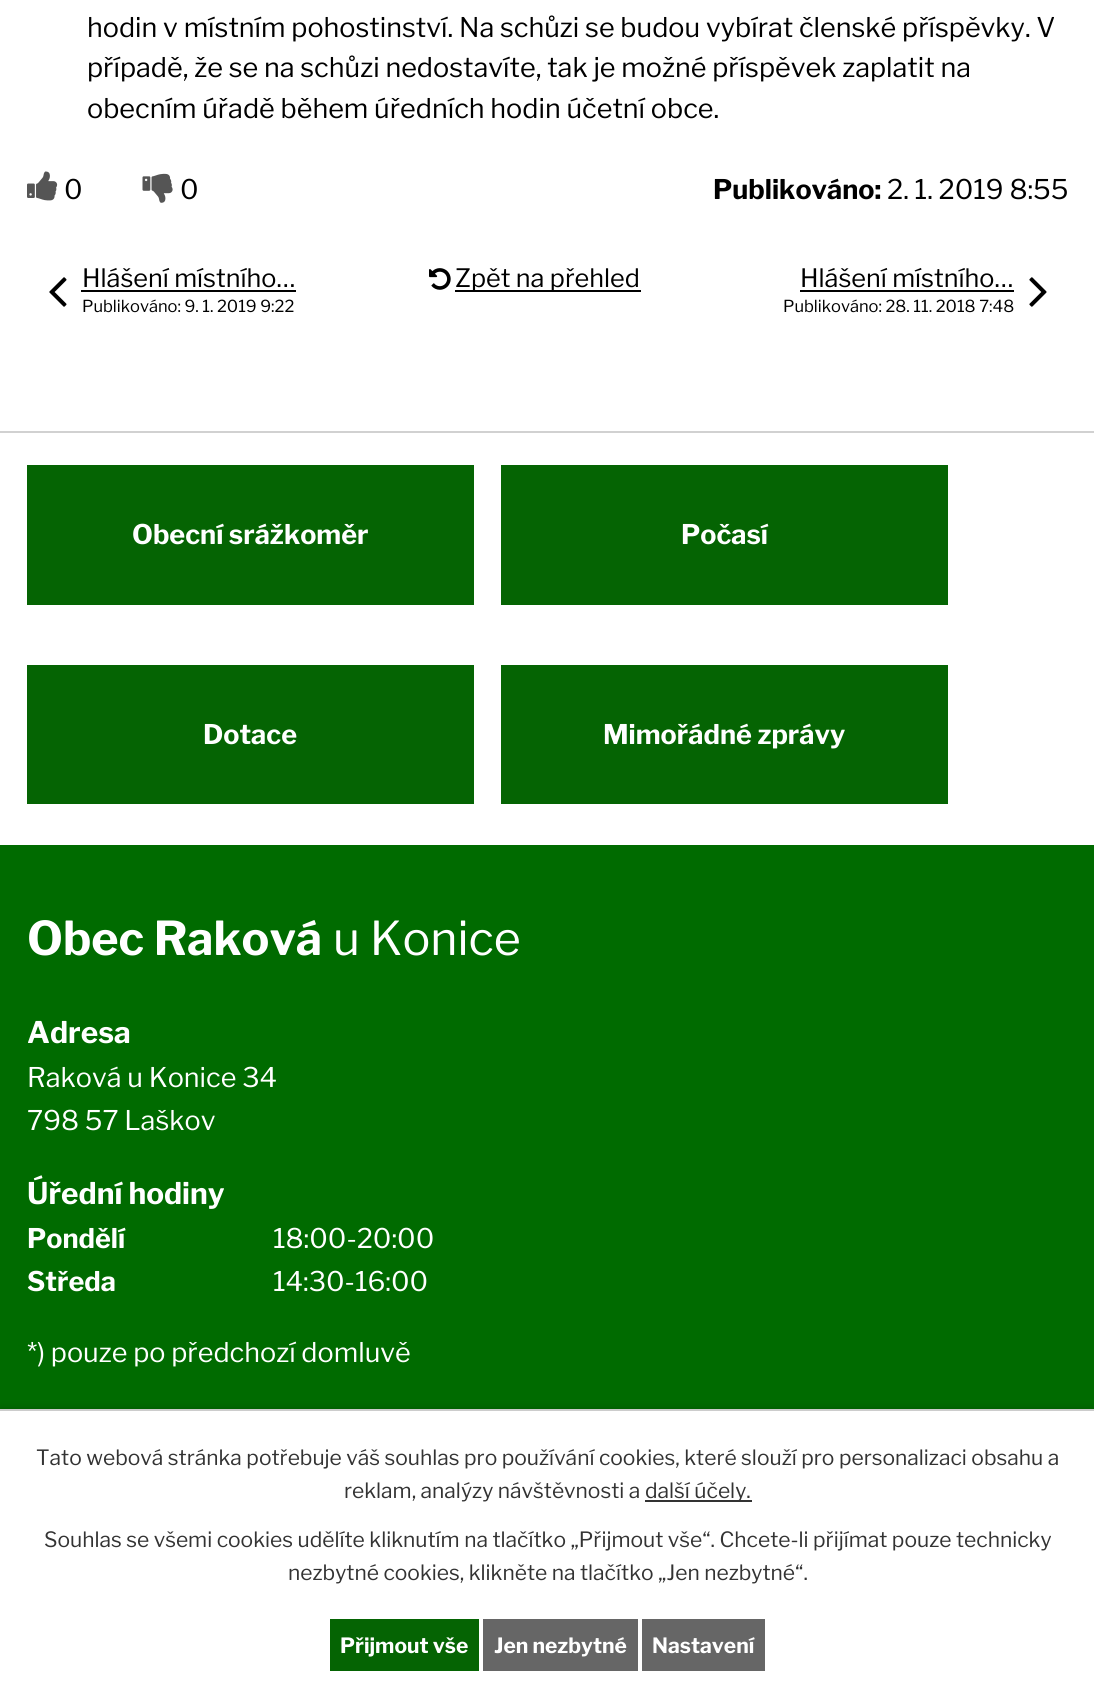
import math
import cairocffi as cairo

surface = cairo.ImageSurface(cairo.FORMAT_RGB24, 1094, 1699)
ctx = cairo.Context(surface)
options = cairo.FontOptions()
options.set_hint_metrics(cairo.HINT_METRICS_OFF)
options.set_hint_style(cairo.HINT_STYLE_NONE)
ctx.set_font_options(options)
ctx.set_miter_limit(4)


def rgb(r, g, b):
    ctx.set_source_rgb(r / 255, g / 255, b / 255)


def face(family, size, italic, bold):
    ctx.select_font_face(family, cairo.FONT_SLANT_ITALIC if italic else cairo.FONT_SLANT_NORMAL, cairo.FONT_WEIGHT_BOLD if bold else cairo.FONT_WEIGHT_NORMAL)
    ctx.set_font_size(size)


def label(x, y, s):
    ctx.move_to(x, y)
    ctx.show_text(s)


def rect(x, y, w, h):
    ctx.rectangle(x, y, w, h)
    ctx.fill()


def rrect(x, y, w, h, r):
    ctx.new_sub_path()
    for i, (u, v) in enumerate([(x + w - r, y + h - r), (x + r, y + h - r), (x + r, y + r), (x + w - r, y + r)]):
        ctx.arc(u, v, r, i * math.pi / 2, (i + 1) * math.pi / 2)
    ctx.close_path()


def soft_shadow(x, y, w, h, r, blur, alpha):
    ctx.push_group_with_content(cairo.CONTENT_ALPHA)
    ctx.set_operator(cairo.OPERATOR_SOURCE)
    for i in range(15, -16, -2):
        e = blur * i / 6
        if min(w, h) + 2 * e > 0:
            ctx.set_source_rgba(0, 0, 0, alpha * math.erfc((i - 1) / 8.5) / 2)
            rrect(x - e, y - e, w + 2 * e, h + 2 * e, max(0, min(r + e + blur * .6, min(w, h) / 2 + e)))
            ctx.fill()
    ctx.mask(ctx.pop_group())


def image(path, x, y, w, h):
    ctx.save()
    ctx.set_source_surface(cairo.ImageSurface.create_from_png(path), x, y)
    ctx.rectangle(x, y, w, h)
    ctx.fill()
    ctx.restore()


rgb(255, 255, 255)
ctx.paint()
face('Libre Franklin', 27, 0, 0)
rgb(0, 0, 0)
label(87, 37, 'hodin v místním pohostinství. Na schůzi se budou vybírat členské příspěvky. V')
label(87, 77, 'případě, že se na schůzi nedostavíte, tak je možné příspěvek zaplatit na')
label(87, 118, 'obecním úřadě během úředních hodin účetní obce.')
image('image0.png', 27, 171, 31, 30)
label(64, 199, '0')
image('image1.png', 142, 173, 31, 30)
label(180, 199, '0')
face('Libre Franklin', 27, 0, 1)
label(713, 199, 'Publikováno:')
face('Libre Franklin', 27, 0, 0)
label(887, 199, '2. 1. 2019 8:55')
image('image2.png', 49, 277, 18, 30)
face('Libre Franklin', 25.25, 0, 0)
label(82, 287, 'Hlášení místního…')
rect(81, 290, 215, 2)
face('Libre Franklin', 16.5, 0, 0)
label(82, 312, 'Publikováno: 9. 1. 2019 9:22')
image('image3.png', 429, 268, 22, 22)
rect(455, 290, 186, 2)
face('Libre Franklin', 25.25, 0, 0)
label(455, 287, 'Zpět na přehled')
label(800, 287, 'Hlášení místního…')
rect(800, 290, 214, 2)
face('Libre Franklin', 16.5, 0, 0)
label(783, 312, 'Publikováno: 28. 11. 2018 7:48')
image('image4.png', 1029, 277, 18, 30)
rgb(209, 209, 209)
rect(0, 431, 1094, 2)
rgb(5, 100, 3)
rect(27, 465, 447, 140)
face('Libre Franklin', 27, 0, 1)
rgb(255, 255, 255)
label(132, 544, 'Obecní srážkoměr')
rgb(5, 100, 3)
rect(501, 465, 447, 140)
rgb(255, 255, 255)
label(681, 544, 'Počasí')
rgb(5, 100, 3)
rect(27, 665, 447, 139)
rgb(255, 255, 255)
label(203, 744, 'Dotace')
rgb(5, 100, 3)
rect(501, 665, 447, 139)
rgb(255, 255, 255)
label(603, 744, 'Mimořádné zprávy')
rgb(0, 107, 0)
rect(0, 845, 1094, 564)
face('Libre Franklin', 46.5, 0, 1)
rgb(255, 255, 255)
label(27, 955, 'Obec Raková')
face('Libre Franklin', 46.5, 0, 0)
label(333, 955, 'u Konice')
face('Libre Franklin', 29.75, 0, 1)
label(27, 1043, 'Adresa')
face('Libre Franklin', 27, 0, 0)
label(27, 1087, 'Raková u Konice 34')
label(27, 1130, '798 57 Laškov')
face('Libre Franklin', 29.75, 0, 1)
label(27, 1204, 'Úřední hodiny')
face('Libre Franklin', 27, 0, 1)
label(27, 1248, 'Pondělí')
face('Libre Franklin', 27, 0, 0)
label(273, 1248, '18:00-20:00')
face('Libre Franklin', 27, 0, 1)
label(27, 1291, 'Středa')
face('Libre Franklin', 27, 0, 0)
label(273, 1291, '14:30-16:00')
label(27, 1362, '*) pouze po předchozí domluvě')
rgb(0, 0, 0)
soft_shadow(0, 1409, 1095, 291, 0, 4, 0.2)
rgb(255, 255, 255)
rect(0, 1411, 1094, 288)
rgb(204, 204, 204)
rect(0, 1409, 1094, 2)
face('Libre Franklin', 21, 0, 0)
rgb(51, 51, 51)
label(36, 1465, 'Tato webová stránka potřebuje váš souhlas pro používání cookies, které slouží pro personalizaci obsahu a')
label(344, 1498, 'reklam, analýzy návštěvnosti a')
rect(645, 1500, 107, 2)
label(645, 1498, 'další účely.')
label(44, 1547, 'Souhlas se všemi cookies udělíte kliknutím na tlačítko „Přijmout vše“. Chcete-li přijímat pouze technicky')
label(288, 1580, 'nezbytné cookies, klikněte na tlačítko „Jen nezbytné“.')
rgb(5, 100, 3)
rect(330, 1619, 149, 52)
face('Libre Franklin', 21, 0, 1)
rgb(255, 255, 255)
label(340, 1653, 'Přijmout vše')
rgb(102, 102, 102)
rect(483, 1619, 155, 52)
rgb(255, 255, 255)
label(494, 1653, 'Jen nezbytné')
rgb(102, 102, 102)
rect(642, 1619, 123, 52)
rgb(255, 255, 255)
label(652, 1653, 'Nastavení')
surface.write_to_png('render.png')
